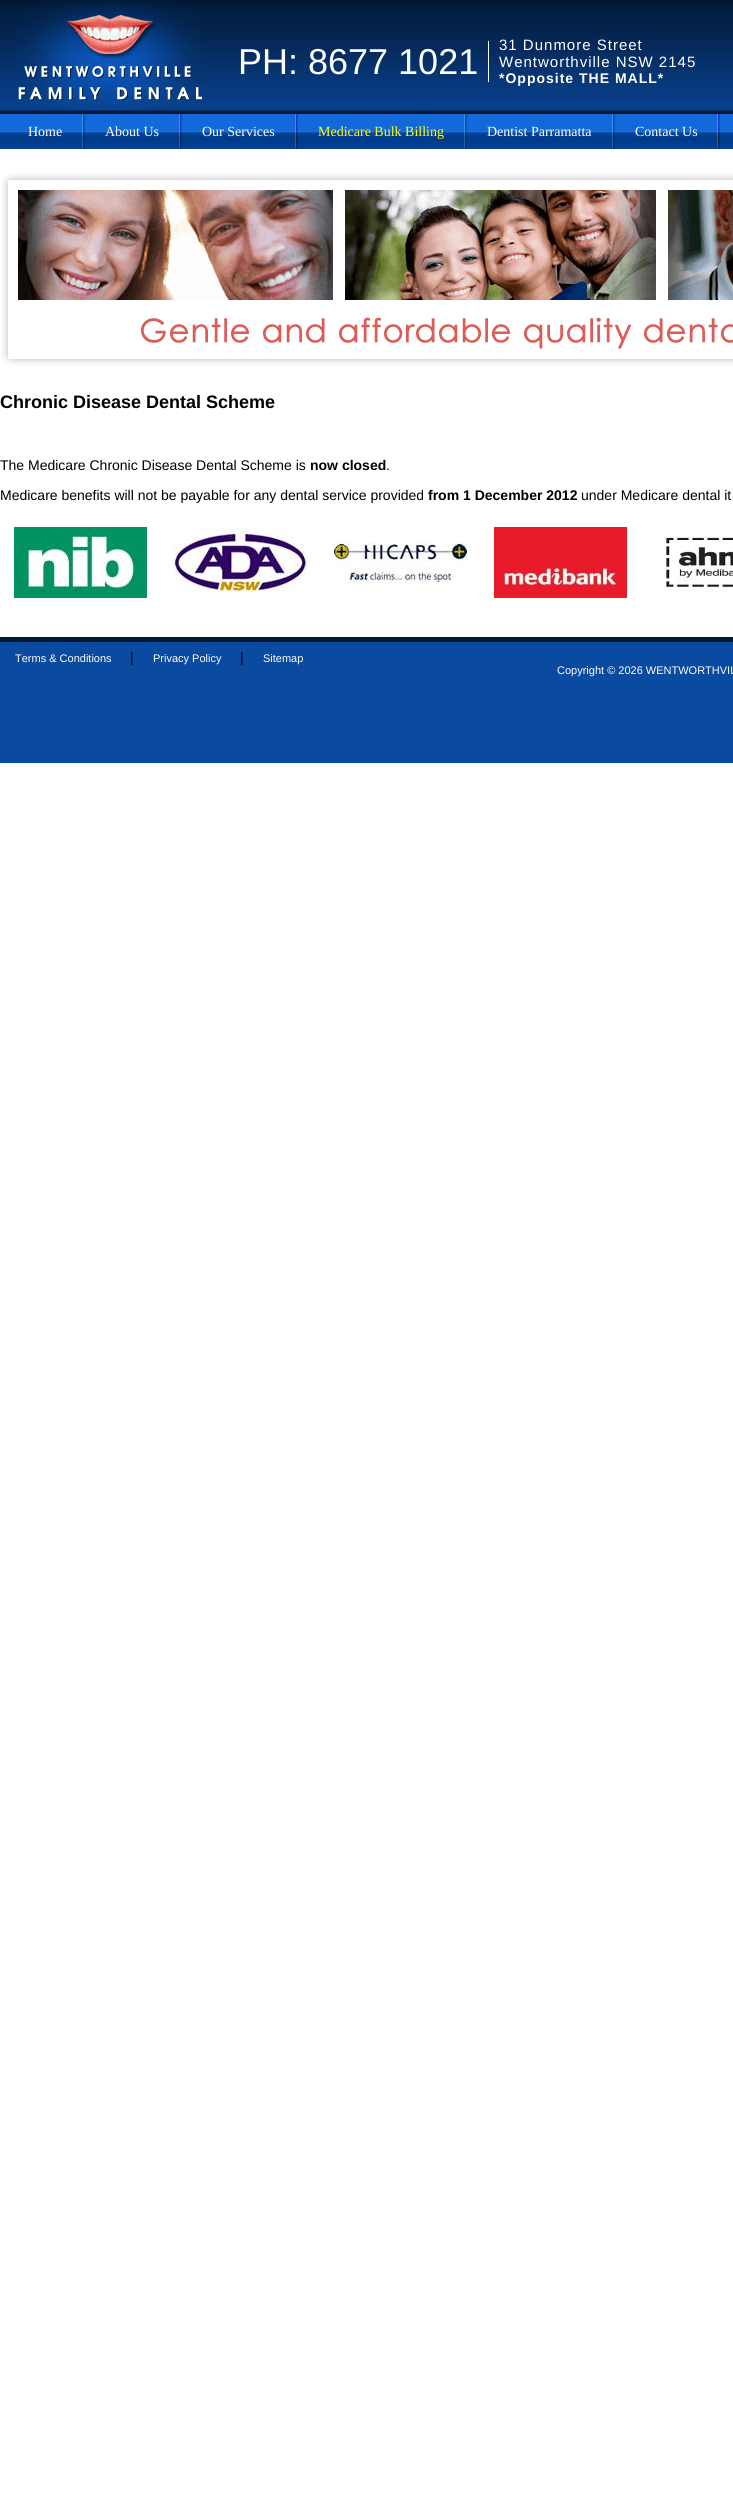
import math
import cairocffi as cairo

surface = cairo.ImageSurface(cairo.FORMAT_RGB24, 733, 2512)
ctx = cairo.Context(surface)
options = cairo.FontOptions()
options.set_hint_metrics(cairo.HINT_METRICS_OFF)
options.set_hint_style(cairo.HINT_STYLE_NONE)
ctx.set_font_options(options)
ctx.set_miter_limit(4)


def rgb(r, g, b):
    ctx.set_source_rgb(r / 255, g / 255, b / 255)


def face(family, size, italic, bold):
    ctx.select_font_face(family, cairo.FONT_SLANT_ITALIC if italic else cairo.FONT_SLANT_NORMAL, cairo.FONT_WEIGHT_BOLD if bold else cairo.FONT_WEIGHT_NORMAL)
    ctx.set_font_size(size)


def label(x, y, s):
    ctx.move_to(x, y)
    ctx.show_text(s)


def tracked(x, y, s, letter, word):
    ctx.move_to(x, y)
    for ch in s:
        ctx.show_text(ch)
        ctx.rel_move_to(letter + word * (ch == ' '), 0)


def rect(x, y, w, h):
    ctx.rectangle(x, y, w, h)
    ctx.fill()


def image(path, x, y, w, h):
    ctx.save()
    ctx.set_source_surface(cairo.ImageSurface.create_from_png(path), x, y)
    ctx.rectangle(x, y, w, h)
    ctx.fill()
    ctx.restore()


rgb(255, 255, 255)
ctx.paint()
image('image0.png', 0, 0, 733, 149)
image('image1.png', 16, 0, 186, 110)
rgb(255, 255, 255)
rect(488, 41, 1, 41)
face('Liberation Sans', 36, 0, 0)
label(238, 74, 'PH: 8677 1021')
face('Liberation Sans', 15, 0, 0)
tracked(499, 50, '31 Dunmore Street', 1, 0)
tracked(499, 67, 'Wentworthville NSW 2145', 1, 0)
face('Liberation Sans', 14, 0, 1)
tracked(499, 83, '*Opposite THE MALL*', 1, 0)
image('image2.png', 82, 114, 3, 35)
face('Liberation Serif', 14, 0, 0)
label(28, 136, 'Home')
image('image2.png', 179, 114, 3, 35)
label(105, 136, 'About Us')
image('image2.png', 295, 114, 3, 35)
label(202, 136, 'Our Services')
image('image2.png', 464, 114, 3, 35)
rgb(255, 255, 0)
label(318, 136, 'Medicare Bulk Billing')
image('image2.png', 612, 114, 3, 35)
rgb(255, 255, 255)
label(487, 136, 'Dentist Parramatta')
image('image2.png', 717, 114, 3, 35)
label(635, 136, 'Contact Us')
image('image3.png', 1, 173, 732, 193)
face('Liberation Sans', 18, 0, 1)
rgb(0, 0, 0)
label(0, 408, 'Chronic Disease Dental Scheme')
face('Liberation Sans', 14, 0, 0)
label(0, 470, 'The Medicare Chronic Disease Dental Scheme is')
face('Liberation Sans', 14, 0, 1)
label(310, 470, 'now closed')
face('Liberation Sans', 14, 0, 0)
label(386, 470, '.')
label(0, 500, 'Medicare benefits will not be payable for any dental service provided')
face('Liberation Sans', 14, 0, 1)
label(428, 500, 'from 1 December 2012')
face('Liberation Sans', 14, 0, 0)
label(581, 500, 'under Medicare dental it')
image('image4.png', 14, 527, 133, 71)
image('image5.png', 174, 527, 133, 65)
image('image6.png', 334, 542, 133, 48)
image('image7.png', 494, 527, 133, 71)
image('image8.png', 662, 535, 71, 56)
rgb(10, 74, 160)
rect(0, 642, 733, 121)
rgb(3, 24, 52)
rect(0, 637, 733, 5)
face('Liberation Sans', 11, 0, 0)
rgb(255, 255, 255)
label(15, 662, 'Terms & Conditions')
face('Liberation Sans', 14, 0, 0)
rgb(0, 0, 0)
label(130, 662, '|')
face('Liberation Sans', 11, 0, 0)
rgb(255, 255, 255)
label(153, 662, 'Privacy Policy')
face('Liberation Sans', 14, 0, 0)
rgb(0, 0, 0)
label(240, 662, '|')
face('Liberation Sans', 11, 0, 0)
rgb(255, 255, 255)
label(263, 662, 'Sitemap')
label(557, 674, 'Copyright © 2026 WENTWORTHVIL')
surface.write_to_png('render.png')
